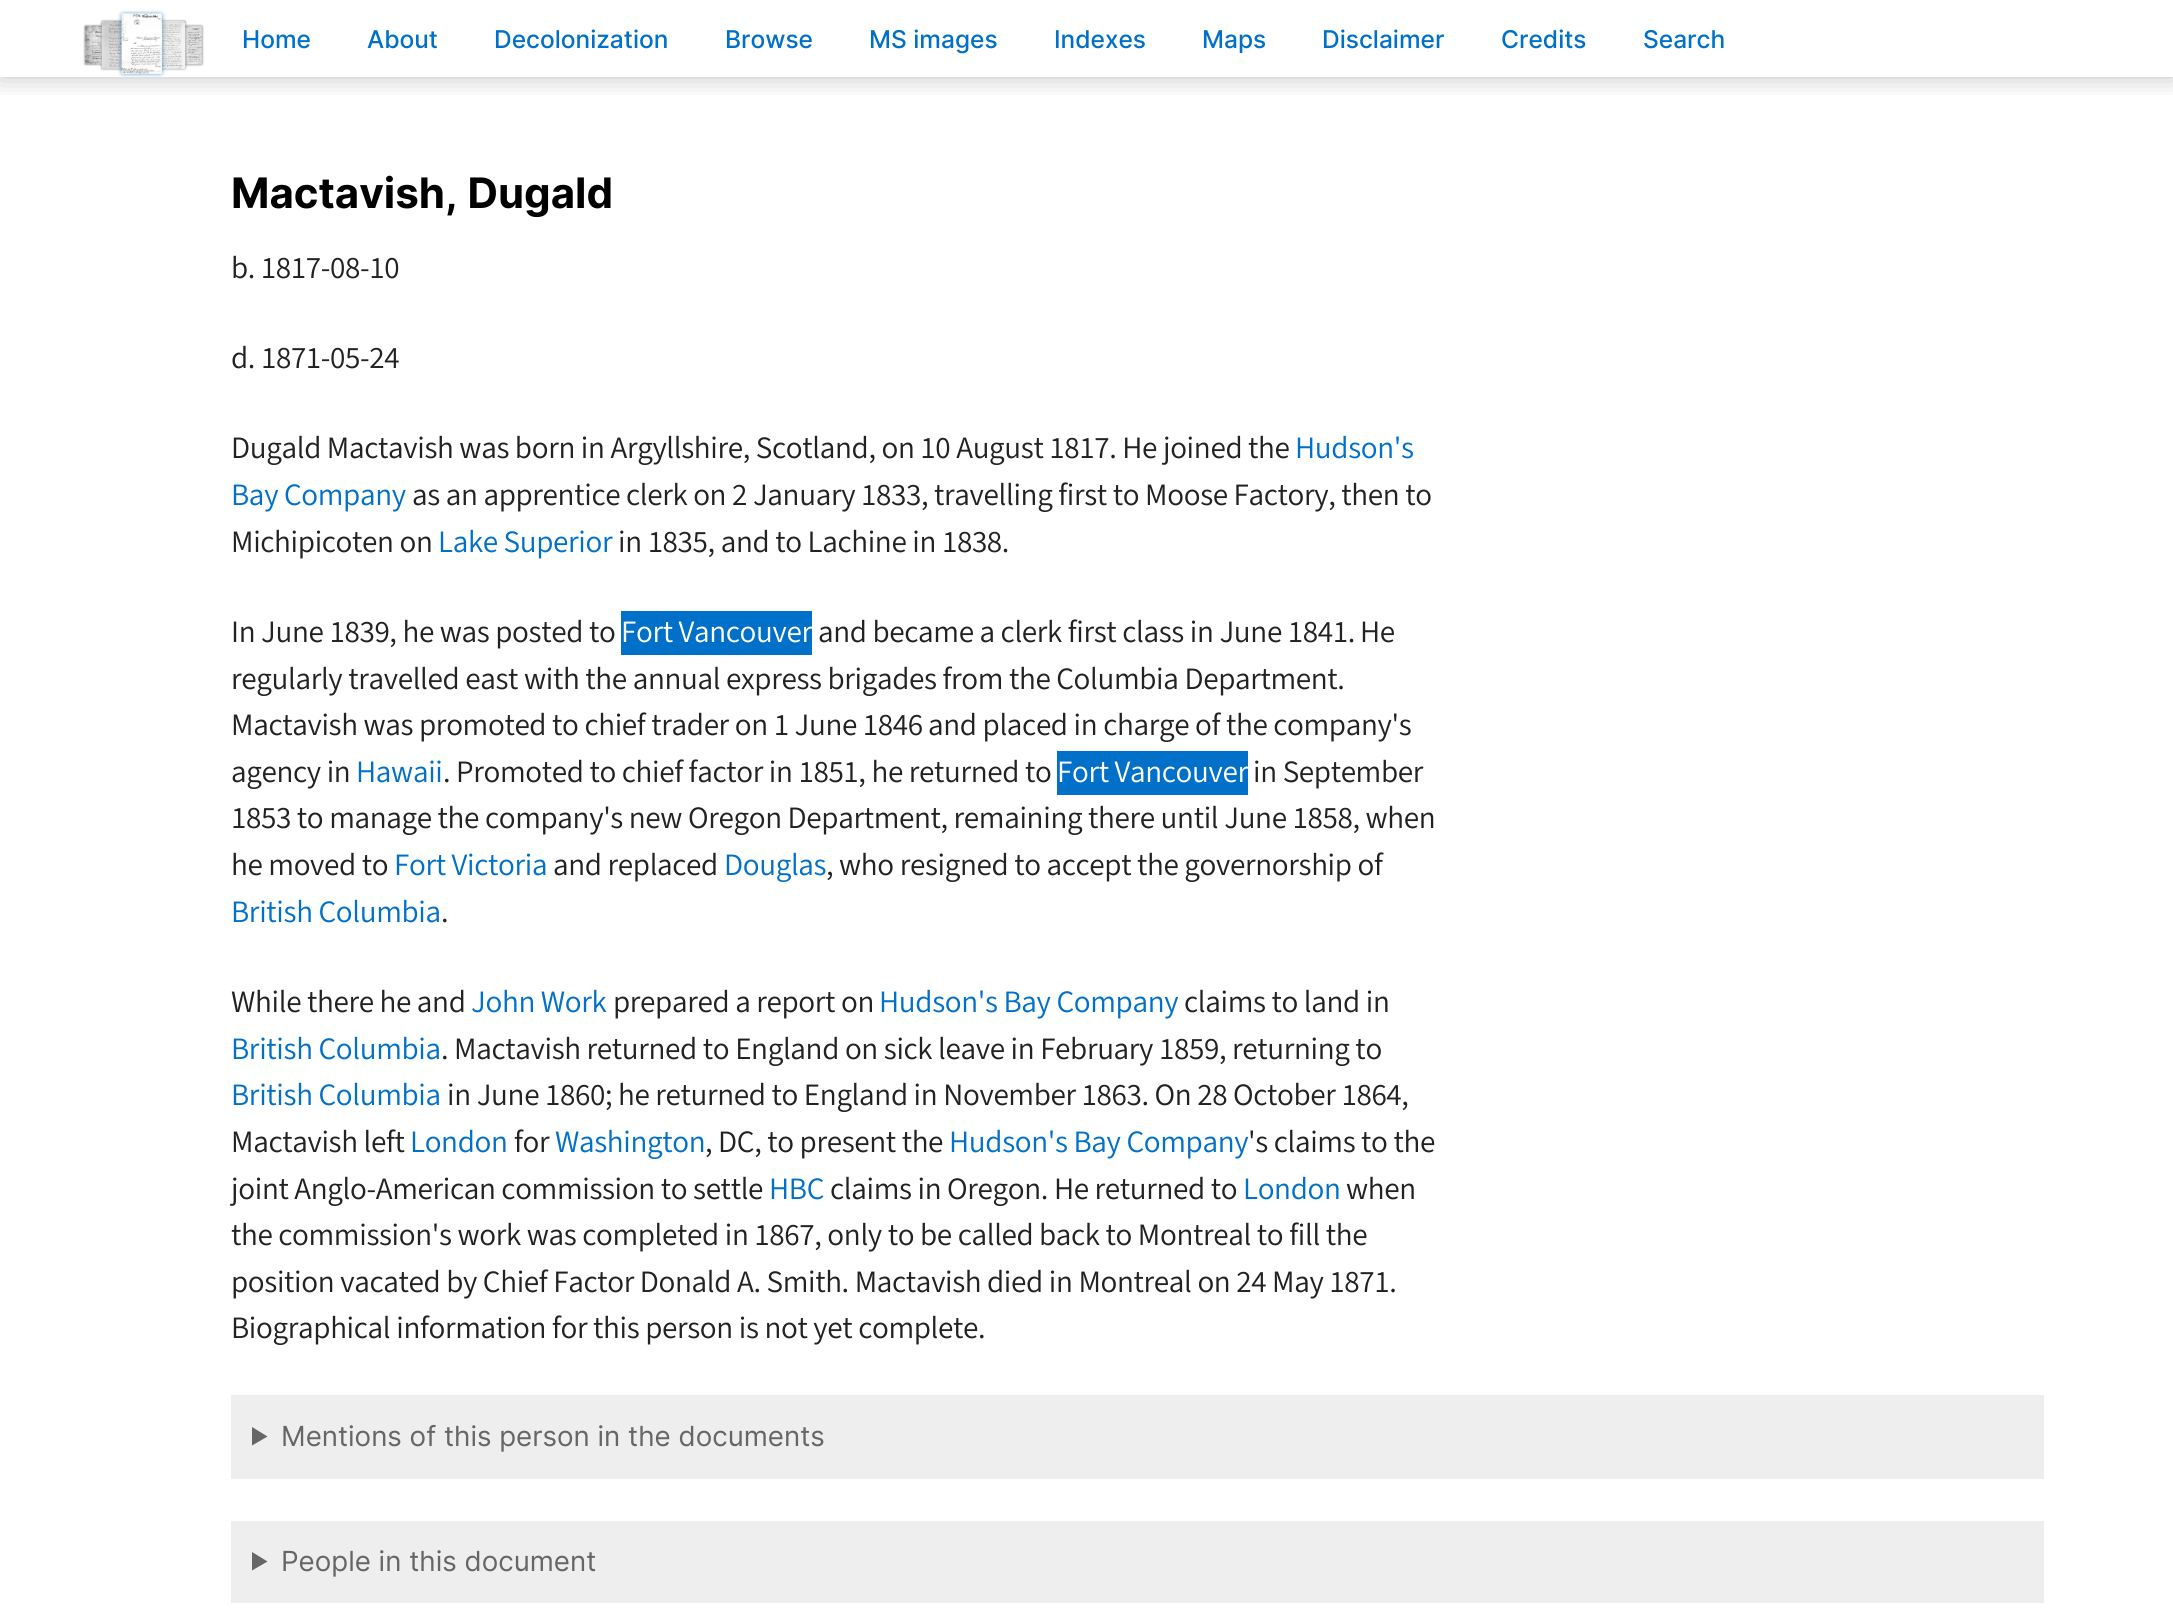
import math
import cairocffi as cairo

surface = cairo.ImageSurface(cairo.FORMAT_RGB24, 2173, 1608)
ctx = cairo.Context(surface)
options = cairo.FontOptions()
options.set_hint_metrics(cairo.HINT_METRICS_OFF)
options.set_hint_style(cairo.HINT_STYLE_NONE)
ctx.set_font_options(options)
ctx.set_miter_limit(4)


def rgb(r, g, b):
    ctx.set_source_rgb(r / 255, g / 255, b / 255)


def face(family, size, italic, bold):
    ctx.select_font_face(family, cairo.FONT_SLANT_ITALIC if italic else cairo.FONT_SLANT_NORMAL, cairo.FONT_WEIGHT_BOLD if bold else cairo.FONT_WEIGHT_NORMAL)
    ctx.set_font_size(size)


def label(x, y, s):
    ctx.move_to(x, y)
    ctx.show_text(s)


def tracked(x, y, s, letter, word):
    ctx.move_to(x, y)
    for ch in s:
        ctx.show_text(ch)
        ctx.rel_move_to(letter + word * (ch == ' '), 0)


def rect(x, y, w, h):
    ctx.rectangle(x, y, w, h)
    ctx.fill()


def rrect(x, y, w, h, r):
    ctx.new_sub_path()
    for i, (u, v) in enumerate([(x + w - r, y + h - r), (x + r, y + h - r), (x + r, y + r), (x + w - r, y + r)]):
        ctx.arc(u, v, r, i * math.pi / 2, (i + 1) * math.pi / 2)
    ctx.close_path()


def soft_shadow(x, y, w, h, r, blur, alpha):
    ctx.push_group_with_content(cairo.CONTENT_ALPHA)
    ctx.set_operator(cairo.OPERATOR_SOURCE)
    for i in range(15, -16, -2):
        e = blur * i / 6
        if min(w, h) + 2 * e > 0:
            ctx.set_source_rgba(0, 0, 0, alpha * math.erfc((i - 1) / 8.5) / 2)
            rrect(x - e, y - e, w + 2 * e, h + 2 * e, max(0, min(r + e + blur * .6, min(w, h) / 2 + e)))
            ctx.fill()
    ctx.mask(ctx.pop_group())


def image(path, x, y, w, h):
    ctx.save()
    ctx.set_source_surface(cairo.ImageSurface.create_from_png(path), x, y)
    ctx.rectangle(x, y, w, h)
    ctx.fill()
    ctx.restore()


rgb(255, 255, 255)
ctx.paint()
ctx.save()
ctx.rectangle(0, 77, 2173, 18)
ctx.clip()
rgb(0, 0, 0)
soft_shadow(0, 0, 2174, 77, 0, 13, 0.25)
ctx.restore()
image('image0.png', 83, 10, 121, 67)
face('Inter Medium', 24.5, 0, 0)
rgb(0, 112, 201)
label(242, 48, 'Home')
label(367, 48, 'About')
label(494, 48, 'Decolonization')
label(725, 48, 'Browse')
label(869, 48, 'MS images')
label(1054, 48, 'Indexes')
label(1202, 48, 'Maps')
label(1322, 48, 'Disclaimer')
label(1501, 48, 'Credits')
label(1643, 48, 'Search')
face('Inter', 42, 0, 1)
rgb(0, 0, 0)
label(231, 208, 'Mactavish, Dugald')
face('Source Sans 3', 31.1, 0, 0)
rgb(34, 34, 34)
tracked(231, 278, 'b. 1817-08-10', -0.35, 0)
tracked(231, 368, 'd. 1871-05-24', -0.35, 0)
tracked(231, 458, 'Dugald Mactavish was born in Argyllshire, Scotland, on 10 August 1817. He joined the', -0.35, 0)
rgb(0, 112, 201)
tracked(1295, 458, 'Hudson\'s', -0.35, 0)
tracked(231, 505, 'Bay Company', -0.35, 0)
rgb(34, 34, 34)
tracked(412, 505, 'as an apprentice clerk on 2 January 1833, travelling first to Moose Factory, then to', -0.35, 0)
tracked(231, 552, 'Michipicoten on', -0.35, 0)
rgb(0, 112, 201)
tracked(438, 552, 'Lake Superior', -0.35, 0)
rgb(34, 34, 34)
tracked(618, 552, 'in 1835, and to Lachine in 1838.', -0.35, 0)
tracked(231, 642, 'In June 1839, he was posted to', -0.35, 0)
rgb(0, 112, 201)
rect(621, 611, 191, 44)
rgb(255, 255, 255)
tracked(621, 642, 'Fort Vancouver', -0.35, 0)
rgb(34, 34, 34)
tracked(818, 642, 'and became a clerk first class in June 1841.', -0.35, 0)
tracked(1360, 642, 'He', -0.35, 0)
tracked(231, 689, 'regularly travelled east with the annual express brigades from the Columbia Department.', -0.35, 0)
tracked(231, 735, 'Mactavish was promoted to chief trader on 1 June 1846', -0.35, 0)
tracked(928, 735, 'and placed in charge of the company\'s', -0.35, 0)
tracked(231, 782, 'agency in', -0.35, 0)
rgb(0, 112, 201)
tracked(356, 782, 'Hawaii', -0.35, 0)
rgb(34, 34, 34)
tracked(443, 782, '. Promoted to chief factor in 1851, he returned to', -0.35, 0)
rgb(0, 112, 201)
rect(1057, 751, 191, 44)
rgb(255, 255, 255)
tracked(1057, 782, 'Fort Vancouver', -0.35, 0)
rgb(34, 34, 34)
tracked(1253, 782, 'in September', -0.35, 0)
tracked(231, 828, '1853 to manage the company\'s new Oregon Department, remaining there until June 1858, when', -0.35, 0)
tracked(231, 875, 'he moved to', -0.35, 0)
rgb(0, 112, 201)
tracked(394, 875, 'Fort Victoria', -0.35, 0)
rgb(34, 34, 34)
tracked(553, 875, 'and replaced', -0.35, 0)
rgb(0, 112, 201)
tracked(724, 875, 'Douglas', -0.35, 0)
rgb(34, 34, 34)
tracked(826, 875, ', who resigned to accept the governorship of', -0.35, 0)
rgb(0, 112, 201)
tracked(231, 922, 'British Columbia', -0.35, 0)
rgb(34, 34, 34)
tracked(441, 922, '.', -0.35, 0)
tracked(231, 1012, 'While there he and', -0.35, 0)
rgb(0, 112, 201)
tracked(471, 1012, 'John Work', -0.35, 0)
rgb(34, 34, 34)
tracked(613, 1012, 'prepared a report on', -0.35, 0)
rgb(0, 112, 201)
tracked(879, 1012, 'Hudson\'s Bay Company', -0.35, 0)
rgb(34, 34, 34)
tracked(1184, 1012, 'claims to land in', -0.35, 0)
rgb(0, 112, 201)
tracked(231, 1059, 'British Columbia', -0.35, 0)
rgb(34, 34, 34)
tracked(441, 1059, '. Mactavish returned to England on sick leave in February 1859, returning to', -0.35, 0)
rgb(0, 112, 201)
tracked(231, 1105, 'British Columbia', -0.35, 0)
rgb(34, 34, 34)
tracked(447, 1105, 'in June 1860; he returned to England in November 1863. On 28 October 1864,', -0.35, 0)
tracked(231, 1152, 'Mactavish left', -0.35, 0)
rgb(0, 112, 201)
tracked(410, 1152, 'London', -0.35, 0)
rgb(34, 34, 34)
tracked(514, 1152, 'for', -0.35, 0)
rgb(0, 112, 201)
tracked(555, 1152, 'Washington', -0.35, 0)
rgb(34, 34, 34)
tracked(705, 1152, ', DC, to present the', -0.35, 0)
rgb(0, 112, 201)
tracked(949, 1152, 'Hudson\'s Bay Company', -0.35, 0)
rgb(34, 34, 34)
tracked(1248, 1152, '\'s claims to the', -0.35, 0)
tracked(231, 1199, 'joint Anglo-American commission to settle', -0.35, 0)
rgb(0, 112, 201)
tracked(769, 1199, 'HBC', -0.35, 0)
rgb(34, 34, 34)
tracked(830, 1199, 'claims in Oregon. He returned to', -0.35, 0)
rgb(0, 112, 201)
tracked(1243, 1199, 'London', -0.35, 0)
rgb(34, 34, 34)
tracked(1346, 1199, 'when', -0.35, 0)
tracked(231, 1245, 'the commission\'s work was completed in 1867, only to be called', -0.35, 0)
tracked(1039, 1245, 'back to Montreal to fill the', -0.35, 0)
tracked(231, 1292, 'position vacated by Chief Factor Donald A. Smith. Mactavish', -0.35, 0)
tracked(987, 1292, 'died in Montreal on 24 May 1871.', -0.35, 0)
tracked(231, 1338, 'Biographical information for this person is not yet complete.', -0.35, 0)
rgb(238, 238, 238)
rect(231, 1395, 1813, 84)
rgb(102, 102, 102)
ctx.new_path()
ctx.move_to(252, 1427)
ctx.line_to(267.5, 1436.5)
ctx.line_to(252, 1445.5)
ctx.close_path()
ctx.fill()
face('Inter', 27.7, 0, 0)
label(281, 1446, 'Mentions of this person in the documents')
rgb(238, 238, 238)
rect(231, 1521, 1813, 82)
rgb(102, 102, 102)
ctx.new_path()
ctx.move_to(252, 1552)
ctx.line_to(267.5, 1561.5)
ctx.line_to(252, 1570.5)
ctx.close_path()
ctx.fill()
label(281, 1571, 'People in this document')
surface.write_to_png('render.png')
